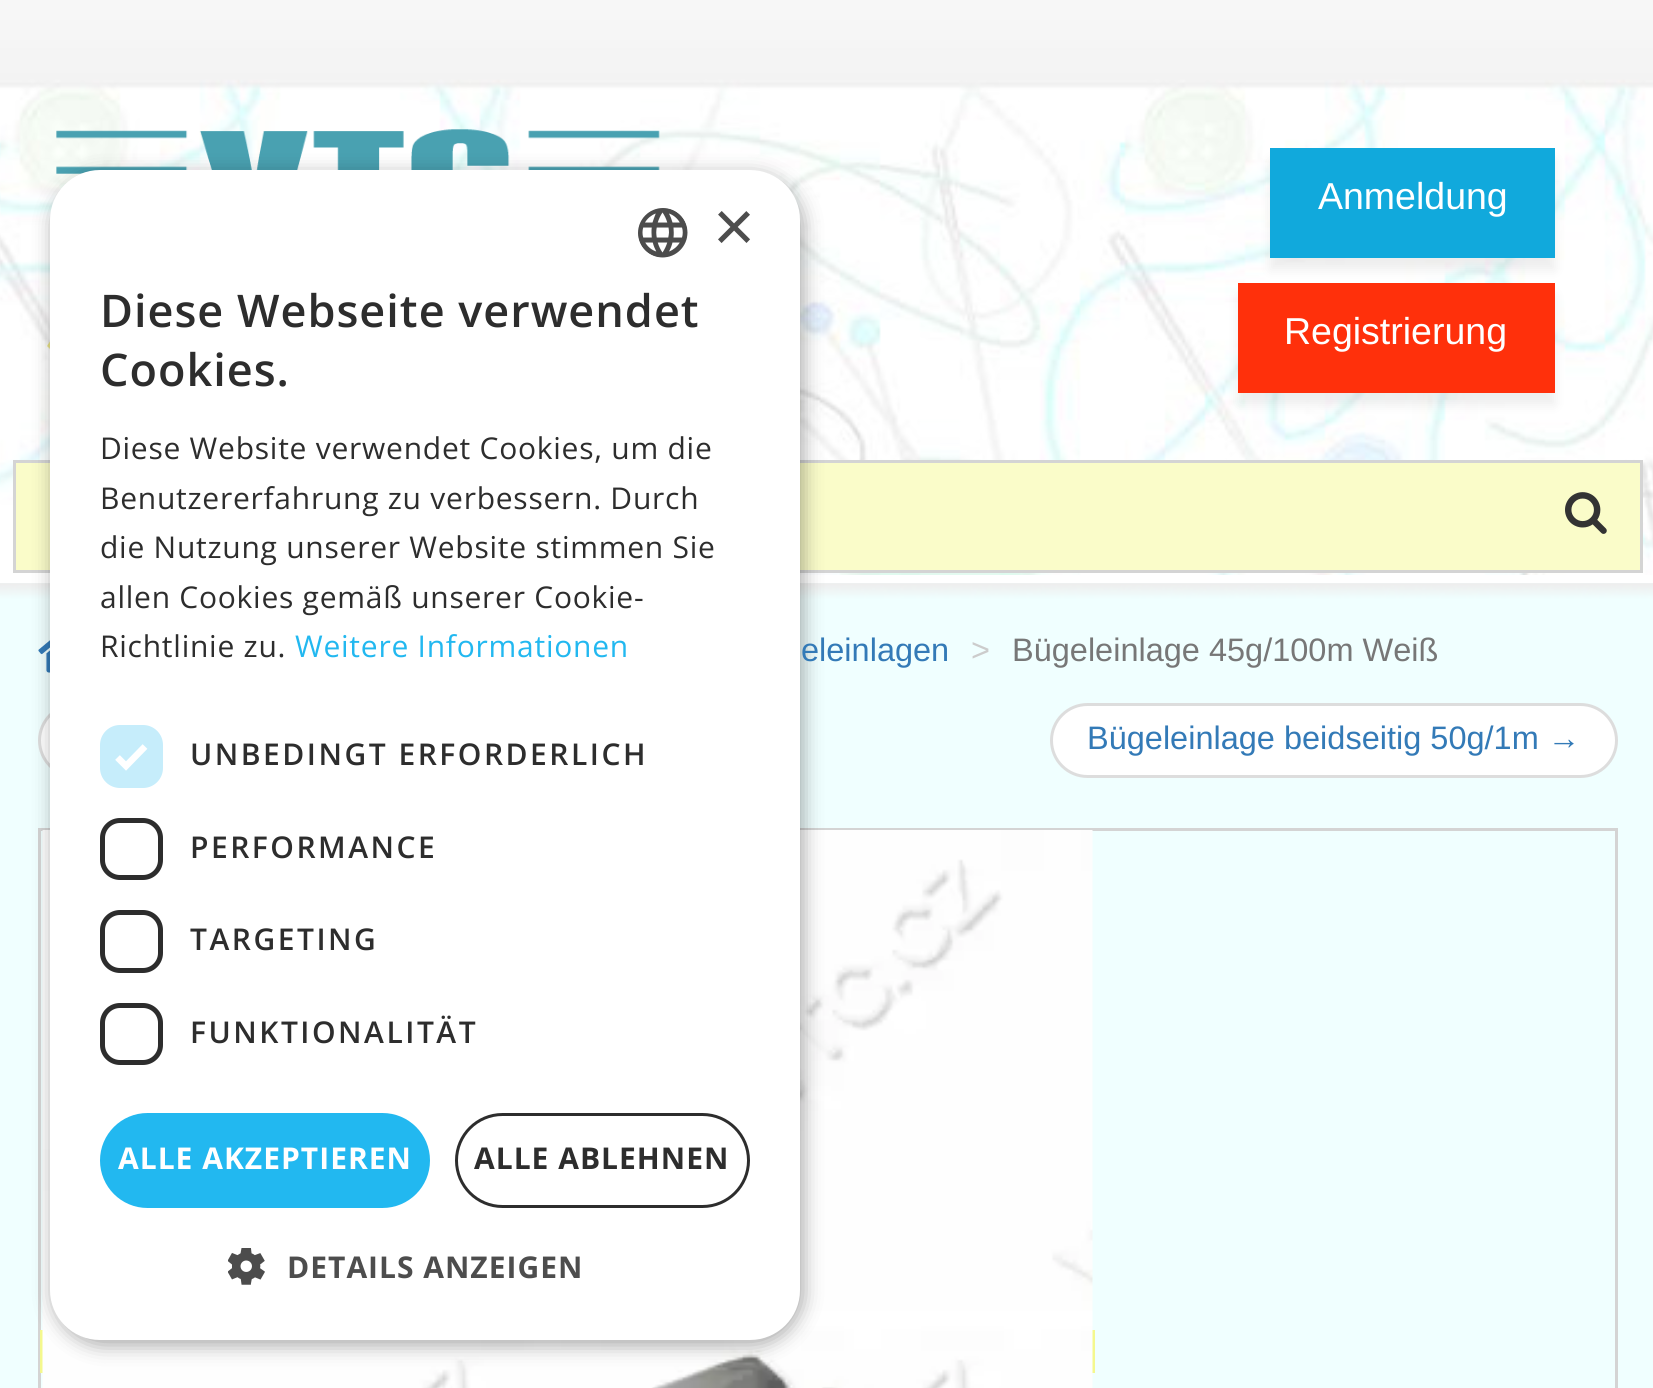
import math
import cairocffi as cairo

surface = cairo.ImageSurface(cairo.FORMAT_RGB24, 1653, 1388)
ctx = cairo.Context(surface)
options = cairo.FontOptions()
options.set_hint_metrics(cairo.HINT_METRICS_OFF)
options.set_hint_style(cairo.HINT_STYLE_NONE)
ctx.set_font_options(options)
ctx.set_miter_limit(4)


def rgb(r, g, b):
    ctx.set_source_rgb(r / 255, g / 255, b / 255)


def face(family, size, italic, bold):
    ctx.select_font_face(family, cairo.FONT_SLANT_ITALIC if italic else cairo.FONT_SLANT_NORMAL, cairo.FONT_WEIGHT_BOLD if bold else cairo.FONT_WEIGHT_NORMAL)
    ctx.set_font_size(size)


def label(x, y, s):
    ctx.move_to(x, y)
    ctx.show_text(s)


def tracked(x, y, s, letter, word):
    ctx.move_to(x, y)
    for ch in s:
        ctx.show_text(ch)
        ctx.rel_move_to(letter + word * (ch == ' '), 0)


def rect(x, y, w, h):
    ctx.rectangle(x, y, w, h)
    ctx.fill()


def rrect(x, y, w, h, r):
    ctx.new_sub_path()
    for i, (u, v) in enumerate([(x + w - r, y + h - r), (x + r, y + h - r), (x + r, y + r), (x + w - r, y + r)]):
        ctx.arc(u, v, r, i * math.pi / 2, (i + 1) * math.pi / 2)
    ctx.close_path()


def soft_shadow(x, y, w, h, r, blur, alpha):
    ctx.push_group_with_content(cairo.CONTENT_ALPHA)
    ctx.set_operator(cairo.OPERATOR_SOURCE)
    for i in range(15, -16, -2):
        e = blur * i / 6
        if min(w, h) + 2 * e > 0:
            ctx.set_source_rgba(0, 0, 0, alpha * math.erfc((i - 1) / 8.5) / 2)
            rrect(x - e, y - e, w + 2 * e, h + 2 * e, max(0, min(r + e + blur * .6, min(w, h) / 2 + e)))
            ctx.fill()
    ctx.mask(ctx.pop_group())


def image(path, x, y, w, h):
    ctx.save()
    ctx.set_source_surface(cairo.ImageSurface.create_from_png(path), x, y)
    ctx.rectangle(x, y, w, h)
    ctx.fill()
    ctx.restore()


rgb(255, 255, 255)
ctx.paint()
image('image2.png', 0, 0, 1653, 575)
image('image3.png', 47, 129, 613, 221)
rgb(250, 252, 201)
rect(16, 463, 1624, 107)
rgb(212, 212, 212)
rect(13, 460, 1630, 3)
rect(1640, 460, 3, 113)
rect(13, 570, 1630, 3)
image('image5.png', 0, 583, 1653, 37)
rgb(240, 255, 255)
rect(0, 620, 1653, 768)
image('image6.png', 38, 640, 12, 33)
rgb(255, 255, 255)
rrect(39.5, 704.5, 537, 72, 36)
ctx.fill_preserve()
rgb(221, 221, 221)
ctx.set_line_width(3)
ctx.stroke()
ctx.rectangle(39.5, 829.5, 1577, 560)
rgb(212, 212, 212)
ctx.stroke()
ctx.rectangle(41.5, 1331.5, 1052, 40)
rgb(244, 248, 142)
ctx.stroke()
image('image7.png', 42, 830, 1051, 558)
rgb(0, 0, 0)
soft_shadow(53, 175, 750, 1170, 50, 10, 0.35)
rgb(255, 255, 255)
rrect(50, 170, 750, 1170, 50)
ctx.fill()
image('image0.png', 638, 208, 50, 50)
face('Liberation Sans', 72, 0, 0)
rgb(77, 77, 77)
label(713, 251, '×')
face('Open Sans SemiBold', 45, 0, 0)
rgb(45, 45, 45)
tracked(100, 327, 'Diese Webseite verwendet', 1, 0)
tracked(100, 386, 'Cookies.', 1, 0)
face('Open Sans', 30, 0, 0)
tracked(100, 459, 'Diese Website verwendet Cookies, um die', 0.75, 0)
tracked(100, 509, 'Benutzererfahrung zu verbessern. Durch', 0.75, 0)
tracked(100, 558, 'die Nutzung unserer Website stimmen Sie', 0.75, 0)
tracked(100, 608, 'allen Cookies gemäß unserer Cookie-', 0.75, 0)
tracked(100, 657, 'Richtlinie zu.', 0.75, 0)
rgb(34, 184, 240)
tracked(295, 657, 'Weitere Informationen', 0.75, 0)
rgb(198, 237, 251)
rrect(100, 725, 63, 63, 20)
ctx.fill()
ctx.new_path()
ctx.move_to(117.5, 757.5)
ctx.line_to(126, 766)
ctx.line_to(145, 746.5)
rgb(255, 255, 255)
ctx.set_line_width(6.6)
ctx.stroke()
face('Open Sans SemiBold', 30, 0, 0)
rgb(45, 45, 45)
tracked(190, 765, 'UNBEDINGT ERFORDERLICH', 2.5, 0)
rrect(102.5, 820.5, 58, 57, 17.5)
ctx.set_line_width(5)
ctx.stroke()
tracked(190, 858, 'PERFORMANCE', 2.5, 0)
rrect(102.5, 912.5, 58, 58, 17.5)
ctx.stroke()
tracked(190, 950, 'TARGETING', 2.5, 0)
rrect(102.5, 1005.5, 58, 57, 17.5)
ctx.stroke()
tracked(190, 1043, 'FUNKTIONALITÄT', 2.5, 0)
rgb(34, 184, 240)
rrect(100, 1113, 330, 95, 47.5)
ctx.fill()
face('Open Sans', 30, 0, 1)
rgb(255, 255, 255)
tracked(118, 1169, 'ALLE AKZEPTIEREN', 1, 0)
rrect(456.5, 1114.5, 292, 92, 46)
rgb(45, 45, 45)
ctx.set_line_width(3)
ctx.stroke()
tracked(474, 1169, 'ALLE ABLEHNEN', 1, 0)
image('image1.png', 228, 1248, 37, 37)
rgb(77, 77, 77)
tracked(287, 1278, 'DETAILS ANZEIGEN', 1, 0)
rgb(0, 0, 0)
soft_shadow(1270, 160, 285, 110, 0, 6, 0.07)
rgb(17, 169, 220)
rect(1270, 148, 285, 110)
face('Liberation Sans', 37.5, 0, 0)
rgb(255, 255, 255)
label(1318, 209, 'Anmeldung')
rgb(0, 0, 0)
soft_shadow(1238, 295, 317, 110, 0, 6, 0.07)
rgb(255, 48, 11)
rect(1238, 283, 317, 110)
rgb(255, 255, 255)
label(1284, 344, 'Registrierung')
image('image4.png', 1565, 492, 42, 42)
rgb(212, 212, 212)
rect(13, 460, 3, 113)
face('Liberation Sans', 32.5, 0, 0)
rgb(51, 122, 183)
label(801, 661, 'eleinlagen')
rgb(204, 204, 204)
label(971, 661, '>')
rgb(119, 119, 119)
label(1012, 661, 'Bügeleinlage 45g/100m Weiß')
rgb(255, 255, 255)
rrect(1051.5, 704.5, 565, 72, 36)
ctx.fill_preserve()
rgb(221, 221, 221)
ctx.stroke()
rgb(51, 122, 183)
label(1087, 749, 'Bügeleinlage beidseitig 50g/1m →')
surface.write_to_png('render.png')
